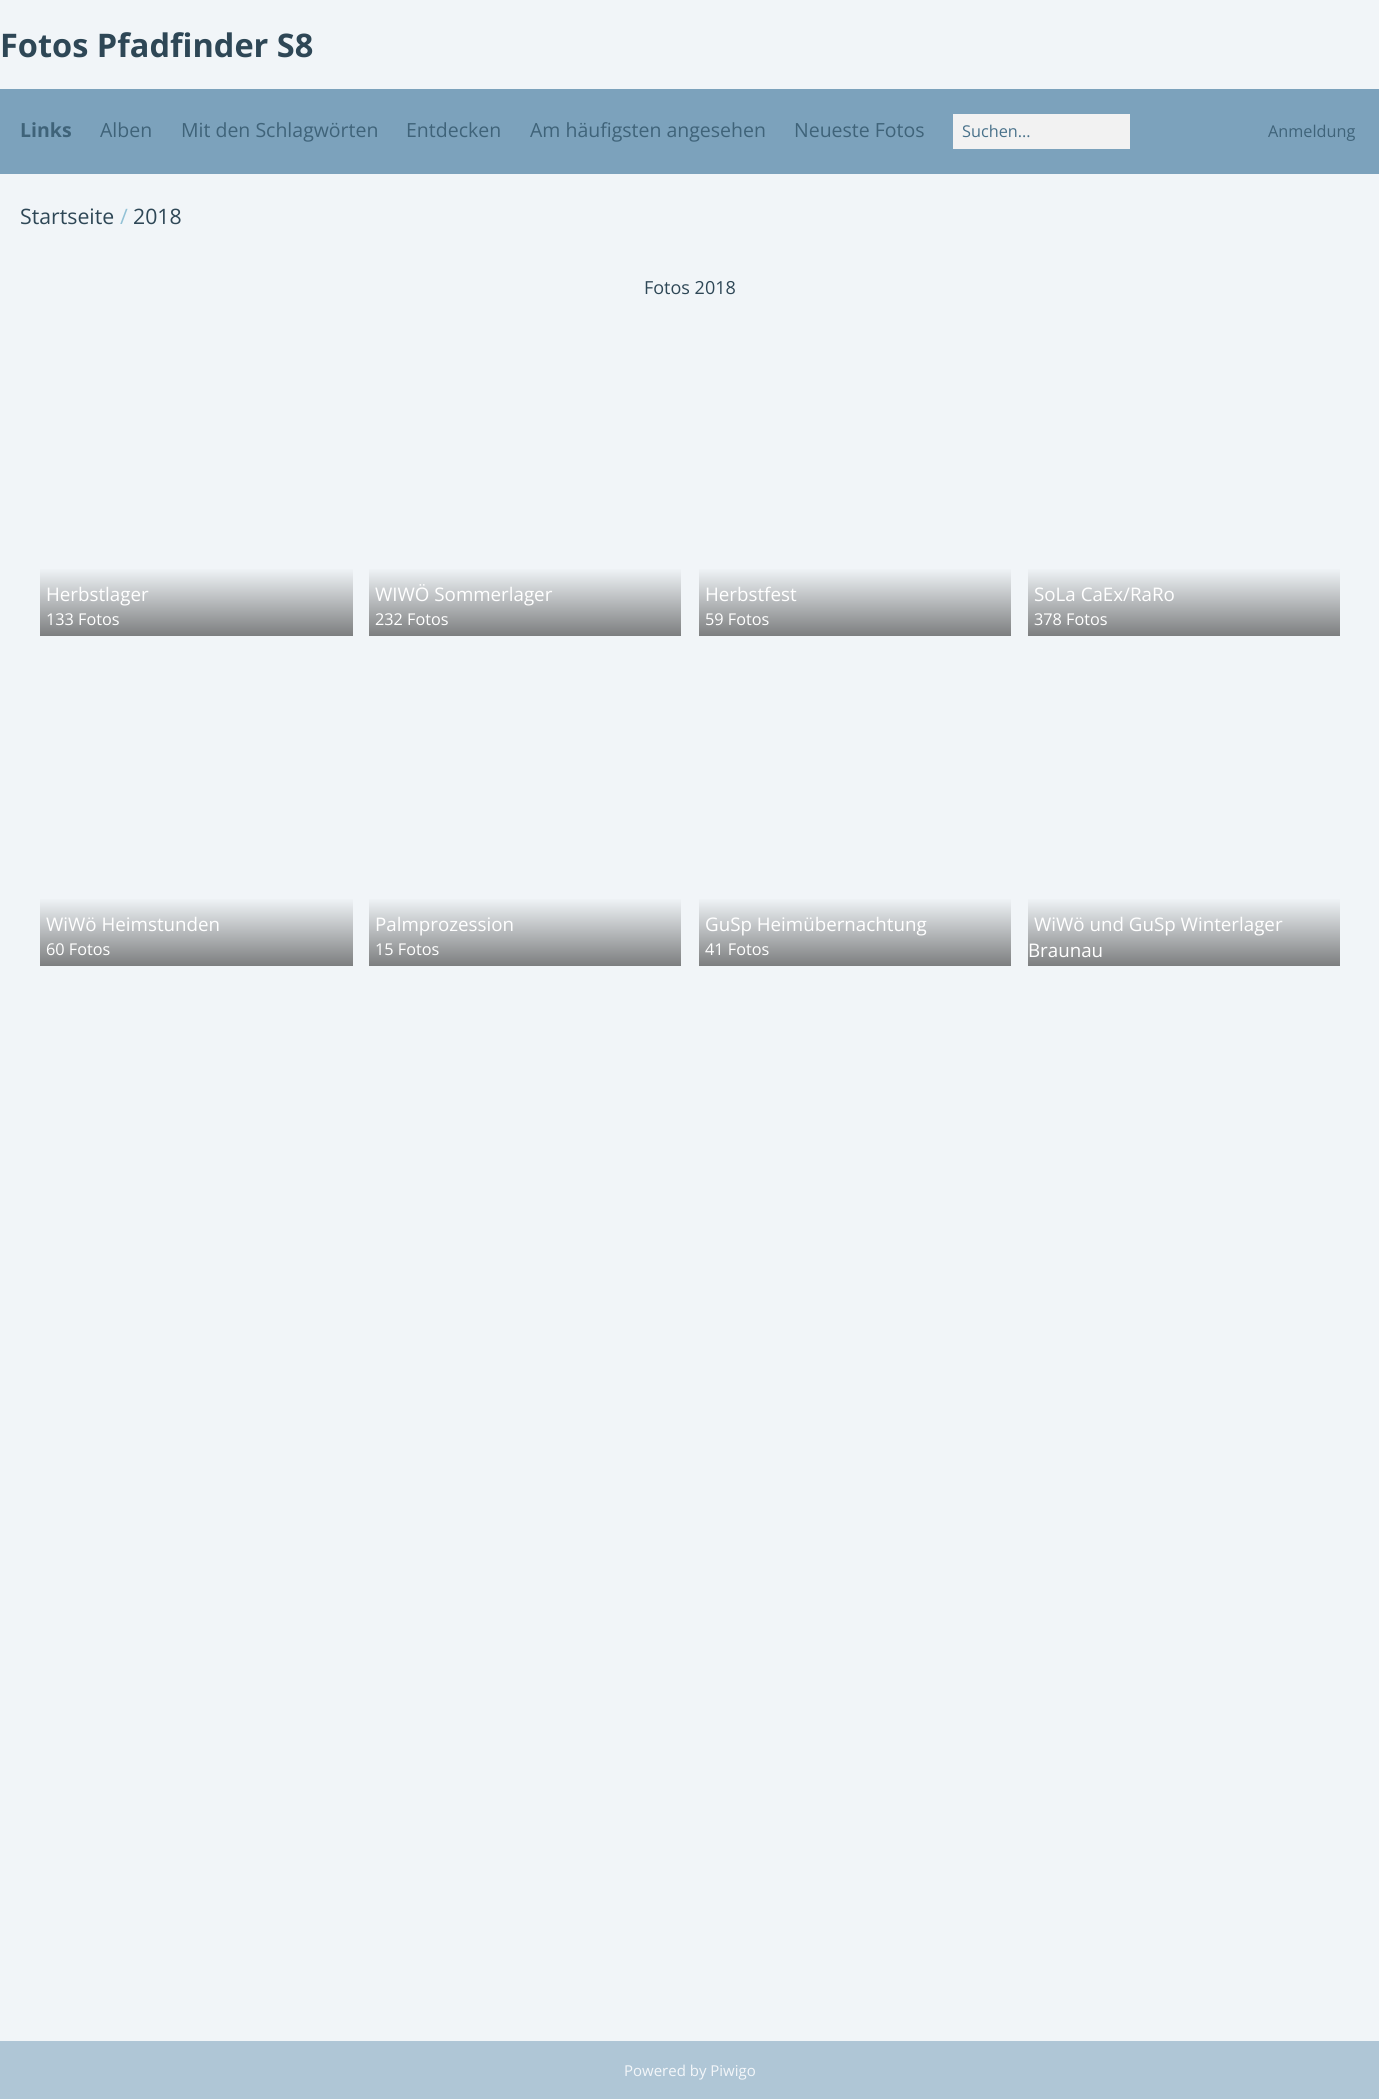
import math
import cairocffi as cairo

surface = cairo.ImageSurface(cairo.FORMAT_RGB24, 1379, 2099)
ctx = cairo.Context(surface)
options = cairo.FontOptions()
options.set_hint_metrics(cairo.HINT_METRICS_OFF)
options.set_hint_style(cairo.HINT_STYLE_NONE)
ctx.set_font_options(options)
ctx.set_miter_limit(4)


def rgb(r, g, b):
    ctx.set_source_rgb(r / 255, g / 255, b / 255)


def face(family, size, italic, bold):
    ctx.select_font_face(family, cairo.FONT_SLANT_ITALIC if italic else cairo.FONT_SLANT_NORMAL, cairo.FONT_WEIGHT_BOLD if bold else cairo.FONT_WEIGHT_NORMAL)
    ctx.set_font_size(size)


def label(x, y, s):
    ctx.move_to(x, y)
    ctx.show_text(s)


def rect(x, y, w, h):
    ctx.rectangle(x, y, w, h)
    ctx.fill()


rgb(241, 245, 248)
ctx.paint()
face('Open Sans', 32.5, 0, 1)
rgb(46, 71, 86)
label(0, 57, 'Fotos Pfadfinder S8')
rgb(124, 162, 188)
rect(0, 89, 1379, 85)
face('Open Sans', 19.5, 0, 1)
rgb(63, 99, 121)
label(20, 137, 'Links')
face('Open Sans', 19.5, 0, 0)
label(100, 137, 'Alben')
label(181, 137, 'Mit den Schlagwörten')
label(406, 137, 'Entdecken')
label(530, 137, 'Am häufigsten angesehen')
label(794, 137, 'Neueste Fotos')
rgb(242, 242, 242)
rect(953, 114, 177, 35)
face('Open Sans', 16.25, 0, 0)
rgb(72, 113, 138)
label(962, 137, 'Suchen...')
rgb(63, 99, 121)
label(1268, 137, 'Anmeldung')
face('Open Sans', 21.25, 0, 0)
rgb(46, 71, 86)
label(20, 224, 'Startseite')
rgb(147, 194, 214)
label(120, 224, '/')
rgb(46, 71, 86)
label(133, 224, '2018')
face('Open Sans', 18, 0, 0)
label(644, 294, 'Fotos 2018')
gradient = cairo.LinearGradient(196, 569, 196, 638)
gradient.add_color_stop_rgba(0, 0.937, 0.953, 0.965, 1)
gradient.add_color_stop_rgba(1, 0.475, 0.482, 0.486, 1)
ctx.set_source(gradient)
rect(40, 569, 313, 67)
face('Open Sans', 18.75, 0, 0)
rgb(255, 255, 255)
label(46, 601, 'Herbstlager')
face('Open Sans', 16.25, 0, 0)
label(46, 625, '133 Fotos')
gradient = cairo.LinearGradient(525, 569, 525, 638)
gradient.add_color_stop_rgba(0, 0.937, 0.953, 0.965, 1)
gradient.add_color_stop_rgba(1, 0.475, 0.482, 0.486, 1)
ctx.set_source(gradient)
rect(369, 569, 312, 67)
face('Open Sans', 18.75, 0, 0)
rgb(255, 255, 255)
label(375, 601, 'WIWÖ Sommerlager')
face('Open Sans', 16.25, 0, 0)
label(375, 625, '232 Fotos')
gradient = cairo.LinearGradient(855, 569, 855, 638)
gradient.add_color_stop_rgba(0, 0.937, 0.953, 0.965, 1)
gradient.add_color_stop_rgba(1, 0.475, 0.482, 0.486, 1)
ctx.set_source(gradient)
rect(699, 569, 312, 67)
face('Open Sans', 18.75, 0, 0)
rgb(255, 255, 255)
label(705, 601, 'Herbstfest')
face('Open Sans', 16.25, 0, 0)
label(705, 625, '59 Fotos')
gradient = cairo.LinearGradient(1184, 569, 1184, 638)
gradient.add_color_stop_rgba(0, 0.937, 0.953, 0.965, 1)
gradient.add_color_stop_rgba(1, 0.475, 0.482, 0.486, 1)
ctx.set_source(gradient)
rect(1028, 569, 312, 67)
face('Open Sans', 18.75, 0, 0)
rgb(255, 255, 255)
label(1034, 601, 'SoLa CaEx/RaRo')
face('Open Sans', 16.25, 0, 0)
label(1034, 625, '378 Fotos')
gradient = cairo.LinearGradient(196, 899, 196, 968)
gradient.add_color_stop_rgba(0, 0.937, 0.953, 0.965, 1)
gradient.add_color_stop_rgba(1, 0.475, 0.482, 0.486, 1)
ctx.set_source(gradient)
rect(40, 899, 313, 67)
face('Open Sans', 18.75, 0, 0)
rgb(255, 255, 255)
label(46, 931, 'WiWö Heimstunden')
face('Open Sans', 16.25, 0, 0)
label(46, 955, '60 Fotos')
gradient = cairo.LinearGradient(525, 899, 525, 968)
gradient.add_color_stop_rgba(0, 0.937, 0.953, 0.965, 1)
gradient.add_color_stop_rgba(1, 0.475, 0.482, 0.486, 1)
ctx.set_source(gradient)
rect(369, 899, 312, 67)
face('Open Sans', 18.75, 0, 0)
rgb(255, 255, 255)
label(375, 931, 'Palmprozession')
face('Open Sans', 16.25, 0, 0)
label(375, 955, '15 Fotos')
gradient = cairo.LinearGradient(855, 899, 855, 968)
gradient.add_color_stop_rgba(0, 0.937, 0.953, 0.965, 1)
gradient.add_color_stop_rgba(1, 0.475, 0.482, 0.486, 1)
ctx.set_source(gradient)
rect(699, 899, 312, 67)
face('Open Sans', 18.75, 0, 0)
rgb(255, 255, 255)
label(705, 931, 'GuSp Heimübernachtung')
face('Open Sans', 16.25, 0, 0)
label(705, 955, '41 Fotos')
gradient = cairo.LinearGradient(1184, 899, 1184, 968)
gradient.add_color_stop_rgba(0, 0.937, 0.953, 0.965, 1)
gradient.add_color_stop_rgba(1, 0.475, 0.482, 0.486, 1)
ctx.set_source(gradient)
rect(1028, 899, 312, 67)
face('Open Sans', 18.75, 0, 0)
rgb(255, 255, 255)
label(1034, 931, 'WiWö und GuSp Winterlager')
label(1028, 957, 'Braunau')
rgb(175, 198, 214)
rect(0, 2041, 1379, 58)
face('Open Sans', 15, 0, 0)
rgb(243, 246, 249)
label(624, 2076, 'Powered by Piwigo')
surface.write_to_png('render.png')
